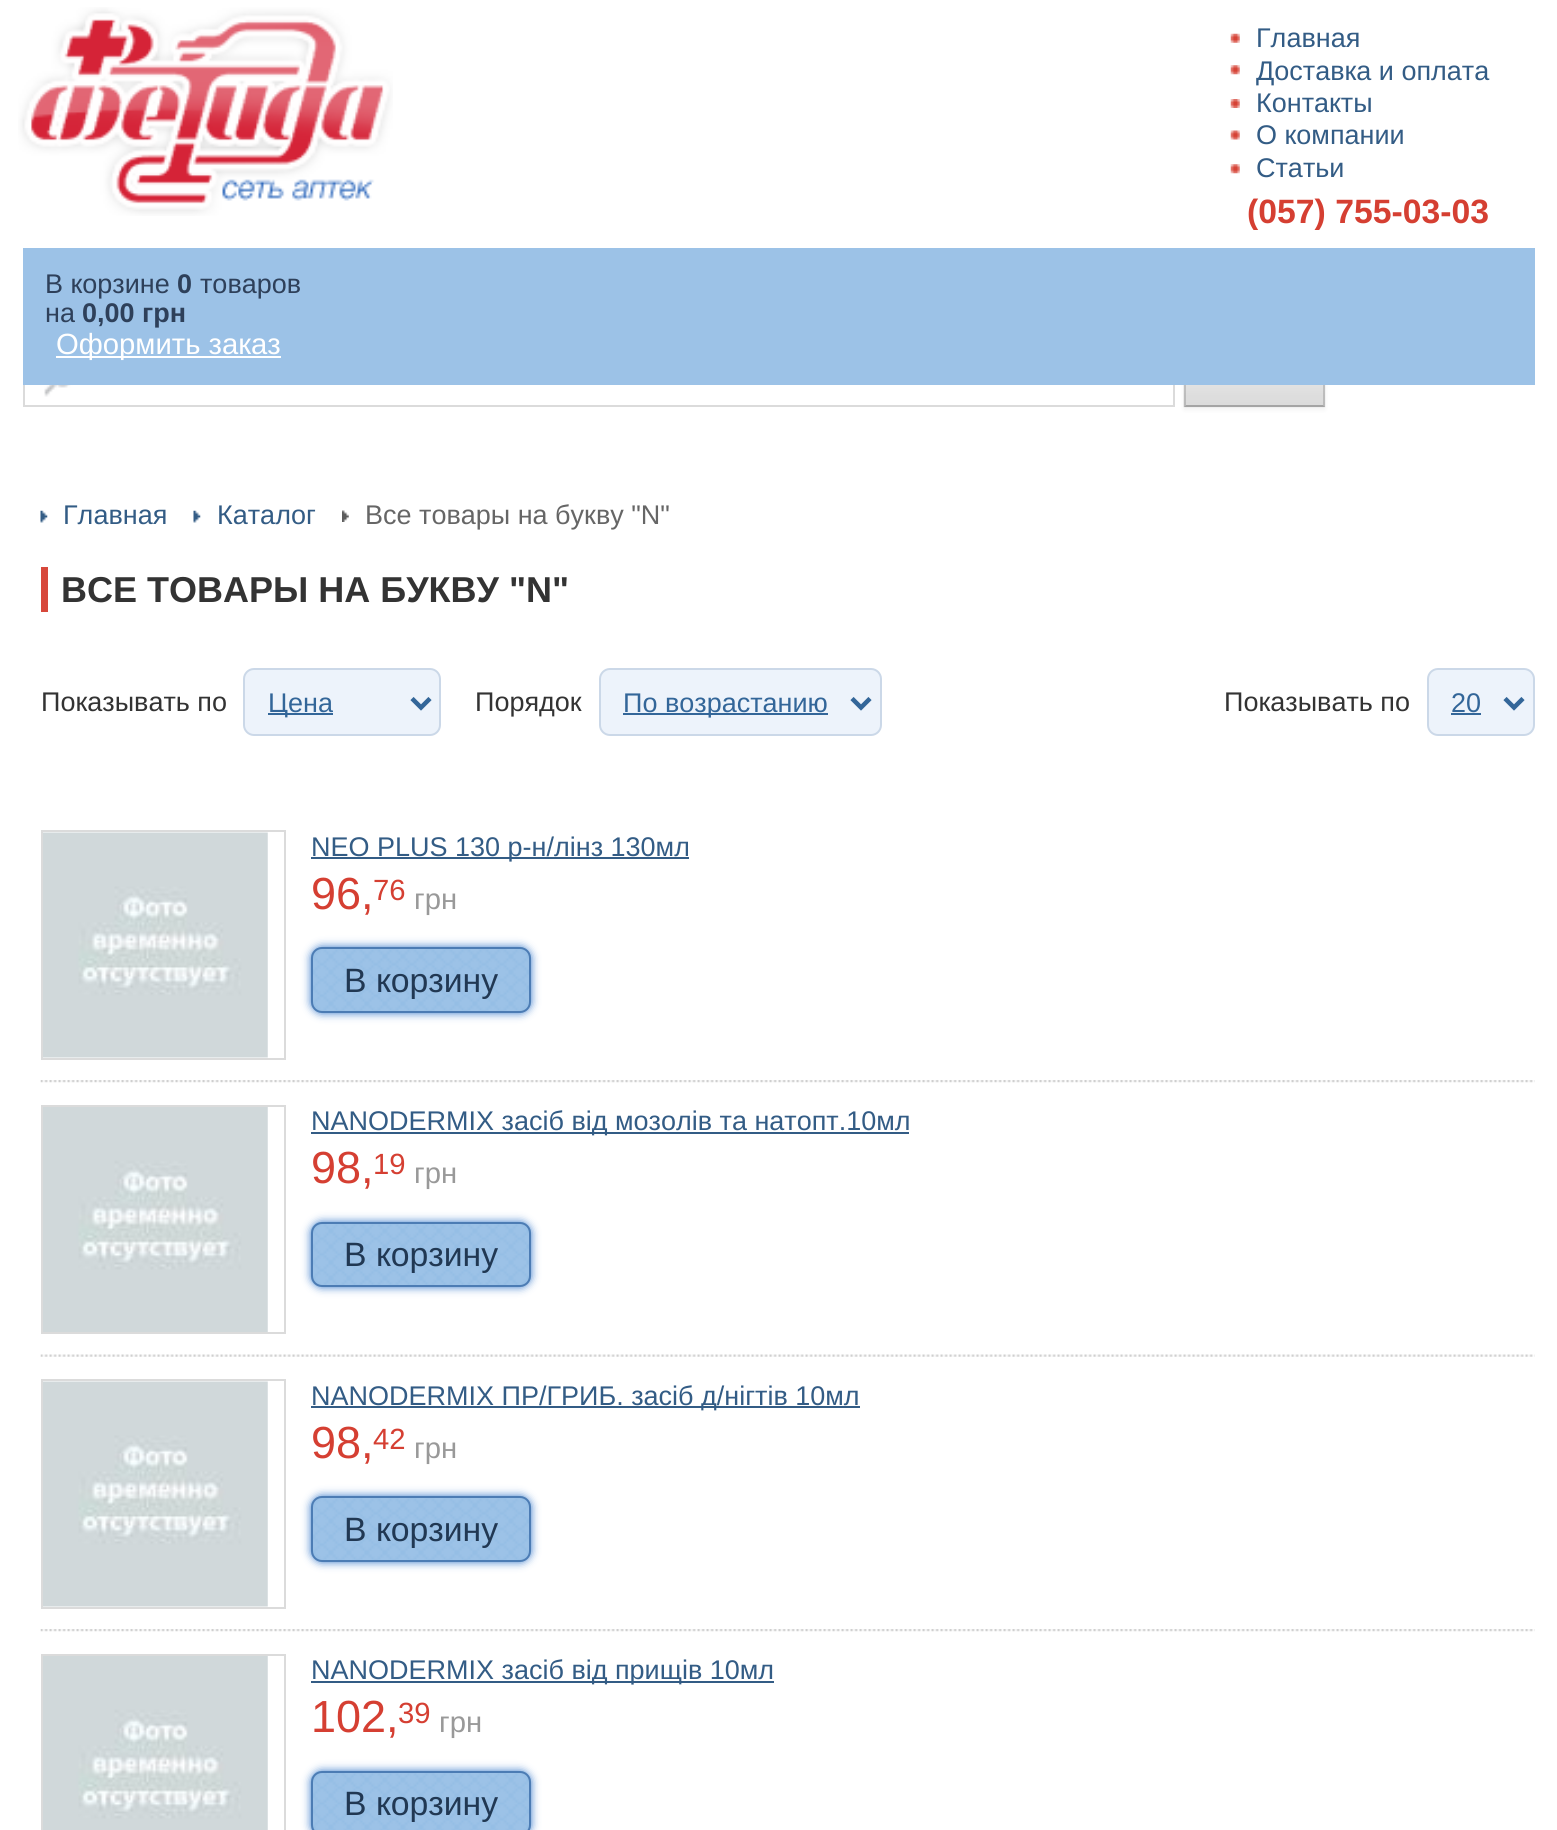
import math
import cairocffi as cairo

surface = cairo.ImageSurface(cairo.FORMAT_RGB24, 1557, 1830)
ctx = cairo.Context(surface)
options = cairo.FontOptions()
options.set_hint_metrics(cairo.HINT_METRICS_OFF)
options.set_hint_style(cairo.HINT_STYLE_NONE)
ctx.set_font_options(options)
ctx.set_miter_limit(4)


def rgb(r, g, b):
    ctx.set_source_rgb(r / 255, g / 255, b / 255)


def face(family, size, italic, bold):
    ctx.select_font_face(family, cairo.FONT_SLANT_ITALIC if italic else cairo.FONT_SLANT_NORMAL, cairo.FONT_WEIGHT_BOLD if bold else cairo.FONT_WEIGHT_NORMAL)
    ctx.set_font_size(size)


def label(x, y, s):
    ctx.move_to(x, y)
    ctx.show_text(s)


def rect(x, y, w, h):
    ctx.rectangle(x, y, w, h)
    ctx.fill()


def rrect(x, y, w, h, r):
    ctx.new_sub_path()
    for i, (u, v) in enumerate([(x + w - r, y + h - r), (x + r, y + h - r), (x + r, y + r), (x + w - r, y + r)]):
        ctx.arc(u, v, r, i * math.pi / 2, (i + 1) * math.pi / 2)
    ctx.close_path()


def soft_shadow(x, y, w, h, r, blur, alpha):
    ctx.push_group_with_content(cairo.CONTENT_ALPHA)
    ctx.set_operator(cairo.OPERATOR_SOURCE)
    for i in range(15, -16, -2):
        e = blur * i / 6
        if min(w, h) + 2 * e > 0:
            ctx.set_source_rgba(0, 0, 0, alpha * math.erfc((i - 1) / 8.5) / 2)
            rrect(x - e, y - e, w + 2 * e, h + 2 * e, max(0, min(r + e + blur * .6, min(w, h) / 2 + e)))
            ctx.fill()
    ctx.mask(ctx.pop_group())


def image(path, x, y, w, h):
    ctx.save()
    ctx.set_source_surface(cairo.ImageSurface.create_from_png(path), x, y)
    ctx.rectangle(x, y, w, h)
    ctx.fill()
    ctx.restore()


rgb(255, 255, 255)
ctx.paint()
image('image0.png', 1230, 33, 10, 10)
face('Liberation Sans', 27, 0, 0)
rgb(51, 92, 133)
label(1256, 47, 'Главная')
image('image1.png', 1230, 65, 10, 10)
label(1256, 80, 'Доставка и оплата')
image('image2.png', 1230, 99, 10, 9)
label(1256, 112, 'Контакты')
image('image3.png', 1230, 130, 10, 10)
label(1256, 144, 'О компании')
image('image1.png', 1230, 164, 10, 10)
label(1256, 177, 'Статьи')
image('image4.png', 18, 7, 375, 209)
face('Liberation Sans', 33.75, 0, 1)
rgb(213, 63, 50)
label(1247, 223, '(057) 755-03-03')
image('image5.png', 44, 385, 31, 12)
ctx.rectangle(24, 350, 1150, 56)
rgb(219, 219, 219)
ctx.stroke()
rgb(0, 0, 0)
soft_shadow(1184, 351, 141, 59, 0, 2, 0.05)
image('image6.png', 1183, 385, 143, 23)
ctx.set_source_rgba(0, 0, 0, 0.15)
ctx.new_path()
ctx.move_to(1325, 349)
ctx.line_to(1325, 407)
ctx.line_to(1323, 405)
ctx.line_to(1323, 351)
ctx.close_path()
ctx.fill()
ctx.set_source_rgba(0, 0, 0, 0.25)
ctx.new_path()
ctx.move_to(1325, 407)
ctx.line_to(1184, 407)
ctx.line_to(1186, 405)
ctx.line_to(1323, 405)
ctx.close_path()
ctx.fill()
ctx.set_source_rgba(0, 0, 0, 0.15)
ctx.new_path()
ctx.move_to(1184, 407)
ctx.line_to(1184, 349)
ctx.line_to(1186, 351)
ctx.line_to(1186, 405)
ctx.close_path()
ctx.fill()
rgb(156, 194, 231)
rect(23, 248, 1512, 137)
face('Liberation Sans', 27, 0, 0)
rgb(46, 64, 90)
label(45, 293, 'В корзине')
face('Liberation Sans', 27, 0, 1)
label(177, 293, '0')
face('Liberation Sans', 27, 0, 0)
label(200, 293, 'товаров')
label(45, 322, 'на')
face('Liberation Sans', 27, 0, 1)
label(82, 322, '0,00 грн')
rgb(255, 255, 255)
rect(56, 356, 225, 2)
face('Liberation Sans', 29.25, 0, 0)
label(56, 354, 'Оформить заказ')
image('image7.png', 40, 510, 8, 13)
face('Liberation Sans', 27, 0, 0)
rgb(51, 92, 133)
label(63, 524, 'Главная')
image('image7.png', 193, 510, 8, 13)
label(217, 524, 'Каталог')
image('image8.png', 342, 510, 7, 12)
rgb(102, 102, 102)
label(365, 524, 'Все товары на букву "N"')
rgb(215, 72, 59)
rect(41, 567, 7, 45)
face('Liberation Sans', 36, 0, 1)
rgb(51, 51, 51)
label(61, 602, 'ВСЕ ТОВАРЫ НА БУКВУ "N"')
face('Liberation Sans', 27, 0, 0)
label(41, 711, 'Показывать по')
rgb(237, 243, 251)
rrect(244, 669, 196, 66, 10)
ctx.fill_preserve()
rgb(203, 216, 232)
ctx.stroke()
ctx.new_path()
ctx.move_to(412, 698.5)
ctx.line_to(421, 707.5)
ctx.line_to(430, 698.5)
rgb(51, 102, 153)
ctx.set_line_width(4.5)
ctx.stroke()
rect(268, 713, 65, 2)
label(268, 712, 'Цена')
rgb(51, 51, 51)
label(475, 711, 'Порядок')
rgb(237, 243, 251)
rrect(600, 669, 281, 66, 10)
ctx.fill_preserve()
rgb(203, 216, 232)
ctx.set_line_width(2)
ctx.stroke()
ctx.new_path()
ctx.move_to(852, 698.5)
ctx.line_to(861, 707.5)
ctx.line_to(870, 698.5)
rgb(51, 102, 153)
ctx.set_line_width(4.5)
ctx.stroke()
rect(623, 713, 205, 2)
label(623, 712, 'По возрастанию')
rgb(51, 51, 51)
label(1224, 711, 'Показывать по')
rgb(237, 243, 251)
rrect(1428, 669, 106, 66, 10)
ctx.fill_preserve()
rgb(203, 216, 232)
ctx.set_line_width(2)
ctx.stroke()
ctx.new_path()
ctx.move_to(1505, 698.5)
ctx.line_to(1514, 707.5)
ctx.line_to(1523, 698.5)
rgb(51, 102, 153)
ctx.set_line_width(4.5)
ctx.stroke()
label(1451, 712, '20')
rect(1451, 713, 30, 2)
image('image9.png', 40, 1080, 1495, 3)
ctx.rectangle(42, 831, 243, 228)
rgb(219, 219, 219)
ctx.set_line_width(2)
ctx.stroke()
image('image10.png', 43, 832, 225, 226)
rgb(51, 92, 133)
rect(311, 857, 378, 2)
label(311, 856, 'NEO PLUS 130 р-н/лінз 130мл')
face('Liberation Sans', 45, 0, 0)
rgb(213, 63, 50)
label(311, 909, '96,')
face('Liberation Sans', 29.25, 0, 0)
label(373, 900, '76')
rgb(153, 153, 153)
label(414, 909, 'грн')
rgb(54, 120, 202)
soft_shadow(311, 947, 220, 66, 11, 4.5, 1)
image('image11.png', 310, 947, 221, 66)
rrect(312, 948, 218, 64, 10)
rgb(76, 124, 180)
ctx.stroke()
face('Liberation Sans', 33.75, 0, 0)
rgb(33, 56, 83)
label(344, 992, 'В корзину')
image('image12.png', 40, 1354, 1495, 3)
ctx.rectangle(42, 1106, 243, 227)
rgb(219, 219, 219)
ctx.stroke()
image('image13.png', 43, 1107, 225, 225)
rgb(51, 92, 133)
rect(311, 1132, 598, 2)
face('Liberation Sans', 27, 0, 0)
label(311, 1130, 'NANODERMIX засіб від мозолів та натопт.10мл')
face('Liberation Sans', 45, 0, 0)
rgb(213, 63, 50)
label(311, 1183, '98,')
face('Liberation Sans', 29.25, 0, 0)
label(373, 1174, '19')
rgb(153, 153, 153)
label(414, 1183, 'грн')
rgb(54, 120, 202)
soft_shadow(311, 1222, 220, 65, 11, 4.5, 1)
image('image14.png', 310, 1222, 221, 65)
rrect(312, 1223, 218, 63, 10)
rgb(76, 124, 180)
ctx.stroke()
face('Liberation Sans', 33.75, 0, 0)
rgb(33, 56, 83)
label(344, 1266, 'В корзину')
image('image9.png', 40, 1629, 1495, 3)
ctx.rectangle(42, 1380, 243, 228)
rgb(219, 219, 219)
ctx.stroke()
image('image15.png', 43, 1381, 225, 226)
rgb(51, 92, 133)
rect(311, 1406, 549, 2)
face('Liberation Sans', 27, 0, 0)
label(311, 1405, 'NANODERMIX ПР/ГРИБ. засіб д/нігтів 10мл')
face('Liberation Sans', 45, 0, 0)
rgb(213, 63, 50)
label(311, 1458, '98,')
face('Liberation Sans', 29.25, 0, 0)
label(373, 1449, '42')
rgb(153, 153, 153)
label(414, 1458, 'грн')
rgb(54, 120, 202)
soft_shadow(311, 1496, 220, 66, 11, 4.5, 1)
image('image11.png', 310, 1496, 221, 66)
rrect(312, 1497, 218, 64, 10)
rgb(76, 124, 180)
ctx.stroke()
face('Liberation Sans', 33.75, 0, 0)
rgb(33, 56, 83)
label(344, 1541, 'В корзину')
ctx.rectangle(42, 1655, 243, 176)
rgb(219, 219, 219)
ctx.stroke()
image('image16.png', 43, 1656, 225, 174)
rgb(51, 92, 133)
rect(311, 1681, 463, 2)
face('Liberation Sans', 27, 0, 0)
label(311, 1679, 'NANODERMIX засіб від прищів 10мл')
face('Liberation Sans', 45, 0, 0)
rgb(213, 63, 50)
label(311, 1732, '102,')
face('Liberation Sans', 29.25, 0, 0)
label(398, 1723, '39')
rgb(153, 153, 153)
label(439, 1732, 'грн')
rgb(54, 120, 202)
soft_shadow(311, 1771, 220, 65, 11, 4.5, 1)
image('image17.png', 310, 1771, 221, 59)
rrect(312, 1772, 218, 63, 10)
rgb(76, 124, 180)
ctx.stroke()
face('Liberation Sans', 33.75, 0, 0)
rgb(33, 56, 83)
label(344, 1815, 'В корзину')
surface.write_to_png('render.png')
